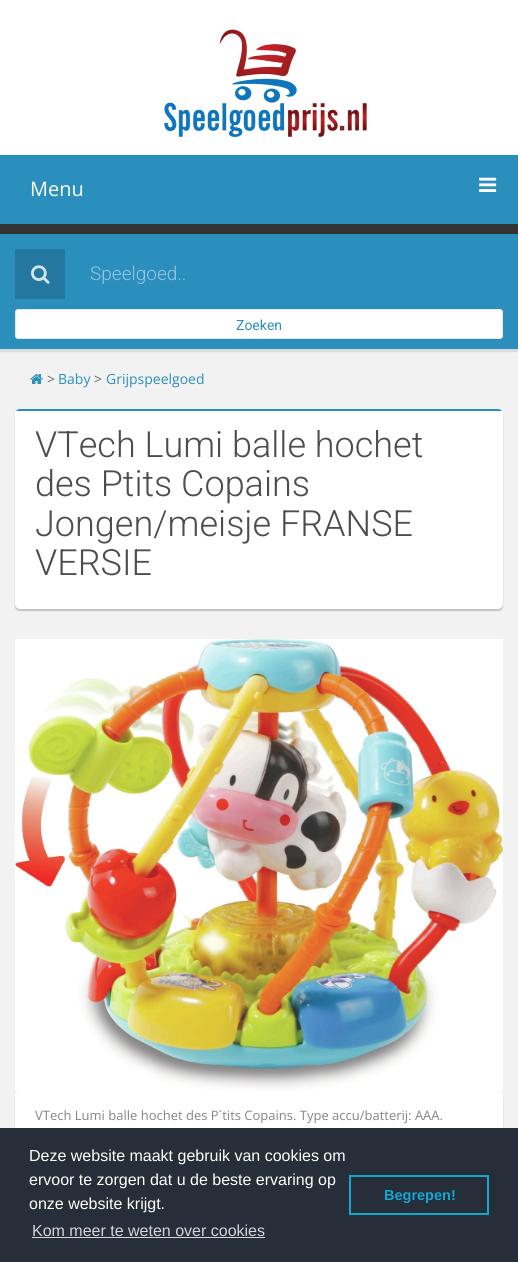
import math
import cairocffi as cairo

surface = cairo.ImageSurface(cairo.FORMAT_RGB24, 518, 1262)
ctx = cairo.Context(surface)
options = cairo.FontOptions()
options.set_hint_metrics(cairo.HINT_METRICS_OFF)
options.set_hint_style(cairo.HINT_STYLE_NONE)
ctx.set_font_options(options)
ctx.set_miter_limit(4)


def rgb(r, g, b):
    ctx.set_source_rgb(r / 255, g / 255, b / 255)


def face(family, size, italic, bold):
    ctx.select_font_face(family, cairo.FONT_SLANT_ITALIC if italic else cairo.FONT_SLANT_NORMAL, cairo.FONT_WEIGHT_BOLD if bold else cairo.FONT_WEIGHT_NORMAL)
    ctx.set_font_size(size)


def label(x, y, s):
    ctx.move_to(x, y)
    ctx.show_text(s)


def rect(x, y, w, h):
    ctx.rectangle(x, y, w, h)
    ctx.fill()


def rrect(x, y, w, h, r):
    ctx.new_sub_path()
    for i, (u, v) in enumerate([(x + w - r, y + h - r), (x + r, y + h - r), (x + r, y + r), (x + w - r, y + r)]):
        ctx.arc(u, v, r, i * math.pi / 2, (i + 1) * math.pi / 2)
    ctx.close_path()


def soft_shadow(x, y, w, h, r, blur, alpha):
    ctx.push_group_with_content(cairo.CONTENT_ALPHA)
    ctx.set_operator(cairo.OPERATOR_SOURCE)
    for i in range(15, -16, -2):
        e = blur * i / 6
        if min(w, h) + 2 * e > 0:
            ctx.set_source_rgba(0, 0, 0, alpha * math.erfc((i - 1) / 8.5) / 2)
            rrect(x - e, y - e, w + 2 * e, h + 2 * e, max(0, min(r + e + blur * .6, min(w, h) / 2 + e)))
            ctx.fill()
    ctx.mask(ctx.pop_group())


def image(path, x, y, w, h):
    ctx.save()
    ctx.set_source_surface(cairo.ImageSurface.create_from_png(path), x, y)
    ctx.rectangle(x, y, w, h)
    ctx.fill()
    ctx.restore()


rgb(242, 242, 242)
ctx.paint()
rgb(255, 255, 255)
rect(0, 0, 518, 155)
image('image0.png', 164, 29, 203, 109)
rgb(51, 51, 51)
rect(0, 224, 518, 10)
rgb(42, 143, 189)
rect(0, 155, 518, 69)
face('Open Sans', 20, 0, 0)
rgb(255, 255, 255)
label(30, 196, 'Menu')
image('image1.png', 479, 177, 18, 15)
rgb(0, 0, 0)
soft_shadow(0, 237, 518, 115, 0, 0.5, 0.1)
rgb(42, 143, 189)
rect(0, 234, 518, 115)
rgb(36, 120, 159)
rect(15, 249, 50, 50)
image('image2.png', 31, 265, 19, 19)
face('Roboto Light', 19, 0, 0)
rgb(149, 199, 222)
label(90, 280, 'Speelgoed..')
rgb(255, 255, 255)
rrect(15.5, 309.5, 487, 29, 2.5)
ctx.fill_preserve()
rgb(230, 230, 230)
ctx.set_line_width(1)
ctx.stroke()
face('Roboto', 14, 0, 0)
rgb(42, 143, 189)
label(236, 330, 'Zoeken')
image('image3.png', 30, 374, 13, 10)
face('Open Sans', 14, 0, 0)
rgb(102, 102, 102)
label(47, 384, '>')
rgb(42, 143, 189)
label(58, 384, 'Baby')
rgb(102, 102, 102)
label(94, 384, '>')
rgb(42, 143, 189)
label(106, 384, 'Grijpspeelgoed')
rgb(0, 0, 0)
soft_shadow(15, 411, 488, 200, 5, 0.5, 0.2)
rgb(255, 255, 255)
rrect(15, 409, 488, 200, 5)
ctx.fill()
ctx.save()
rrect(15, 409, 488, 200, 5)
ctx.clip()
rgb(42, 143, 189)
rect(15, 409, 488, 2)
ctx.restore()
face('Roboto Light', 36, 0, 0)
rgb(77, 77, 77)
label(35, 457, 'VTech Lumi balle hochet')
label(35, 496, 'des Ptits Copains')
label(35, 536, 'Jongen/meisje FRANSE')
label(35, 575, 'VERSIE')
image('image4.png', 15, 639, 488, 452)
rgb(0, 0, 0)
soft_shadow(15, 1093, 488, 148, 5, 0.5, 0.2)
rgb(255, 255, 255)
rrect(15, 1091, 488, 148, 5)
ctx.fill()
face('Open Sans', 13, 0, 0)
rgb(133, 133, 133)
label(35, 1120, 'VTech Lumi balle hochet des P`tits Copains. Type accu/batterij: AAA.')
rgb(37, 46, 57)
rect(0, 1128, 518, 134)
face('Liberation Sans', 16, 0, 0)
rgb(255, 255, 255)
label(29, 1161, 'Deze website maakt gebruik van cookies om')
label(29, 1185, 'ervoor te zorgen dat u de beste ervaring op')
label(29, 1209, 'onze website krijgt.')
rgb(211, 213, 215)
label(32, 1236, 'Kom meer te weten over cookies')
rect(32, 1237, 233, 1)
ctx.rectangle(350, 1176, 138, 38)
rgb(20, 167, 208)
ctx.set_line_width(2)
ctx.stroke()
face('Liberation Sans', 14.5, 0, 1)
label(384, 1200, 'Begrepen!')
surface.write_to_png('render.png')
